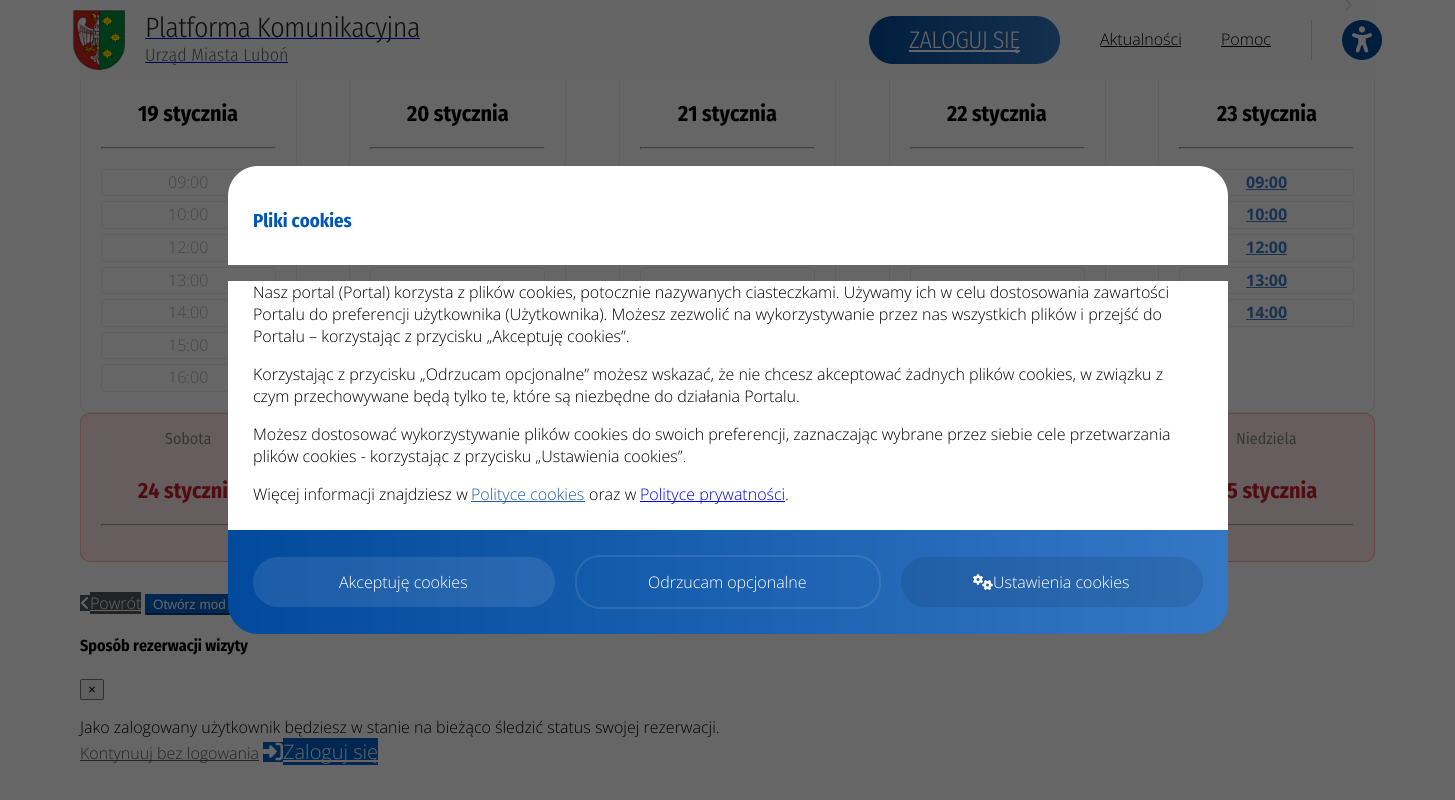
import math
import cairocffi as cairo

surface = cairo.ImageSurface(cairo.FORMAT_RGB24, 1455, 800)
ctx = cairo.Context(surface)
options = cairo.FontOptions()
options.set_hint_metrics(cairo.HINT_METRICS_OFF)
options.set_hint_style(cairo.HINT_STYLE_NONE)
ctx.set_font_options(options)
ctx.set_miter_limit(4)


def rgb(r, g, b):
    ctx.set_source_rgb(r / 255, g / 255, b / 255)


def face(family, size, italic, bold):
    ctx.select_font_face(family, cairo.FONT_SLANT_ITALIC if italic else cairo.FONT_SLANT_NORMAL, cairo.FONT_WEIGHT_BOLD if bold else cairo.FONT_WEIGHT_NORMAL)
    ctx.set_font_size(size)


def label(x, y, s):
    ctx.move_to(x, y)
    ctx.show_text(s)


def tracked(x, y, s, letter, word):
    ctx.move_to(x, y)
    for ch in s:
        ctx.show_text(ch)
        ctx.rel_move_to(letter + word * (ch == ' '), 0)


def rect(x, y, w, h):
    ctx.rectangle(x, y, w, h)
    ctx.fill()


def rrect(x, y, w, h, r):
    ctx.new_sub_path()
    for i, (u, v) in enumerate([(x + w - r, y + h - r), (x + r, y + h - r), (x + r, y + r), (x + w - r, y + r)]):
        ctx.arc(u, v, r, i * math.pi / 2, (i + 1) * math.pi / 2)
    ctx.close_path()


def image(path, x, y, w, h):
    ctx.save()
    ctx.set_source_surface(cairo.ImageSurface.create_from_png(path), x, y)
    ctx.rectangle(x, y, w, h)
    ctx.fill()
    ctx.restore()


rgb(102, 102, 102)
ctx.paint()
image('image2.png', 1345, 0, 7, 11)
rrect(80.5, 36.5, 216, 376, 9.5)
rgb(95, 95, 95)
ctx.set_line_width(1)
ctx.stroke()
rrect(349.5, 36.5, 216, 376, 9.5)
ctx.stroke()
rrect(619.5, 36.5, 216, 376, 9.5)
ctx.stroke()
rrect(889.5, 36.5, 216, 376, 9.5)
ctx.stroke()
rrect(1158.5, 36.5, 216, 376, 9.5)
ctx.stroke()
ctx.set_source_rgba(0.4, 0.4, 0.4, 0.8)
rect(80, 0, 1295, 80)
image('image0.png', 72, 10, 53, 60)
rgb(0, 0, 95)
rect(145, 38, 275, 1)
face('Fira Sans Condensed Light', 28, 0, 0)
rgb(14, 14, 14)
tracked(145, 37, 'Platforma Komunikacyjna', -0.6, 0)
rgb(0, 0, 95)
rect(145, 62, 143, 1)
face('Fira Sans Condensed Light', 18, 0, 0)
rgb(41, 41, 41)
label(145, 61, 'Urząd Miasta Luboń')
gradient = cairo.LinearGradient(1060, 40, 869, 40)
gradient.add_color_stop_rgba(0, 0.082, 0.188, 0.31, 1)
gradient.add_color_stop_rgba(1, 0.004, 0.118, 0.243, 1)
ctx.set_source(gradient)
rrect(869, 16, 191, 48, 24)
ctx.fill()
rgb(102, 102, 102)
rect(909, 50, 111, 2)
face('Fira Sans Condensed Light', 24, 0, 0)
tracked(909, 48, 'ZALOGUJ SIĘ', -0.6, 0)
face('Open Sans Light', 16, 0, 0)
rgb(0, 0, 0)
label(1100, 45, 'Aktualności')
rect(1100, 46, 81, 1)
label(1221, 45, 'Pomoc')
rect(1221, 46, 50, 1)
ctx.set_source_rgba(0.051, 0.051, 0.051, 0.2)
rect(1311, 20, 1, 40)
image('image1.png', 1342, 20, 40, 40)
face('Fira Sans Condensed', 22, 0, 1)
rgb(0, 0, 0)
label(138, 121, '19 stycznia')
rgb(64, 64, 64)
rect(101, 147, 175, 1)
rgb(95, 95, 95)
rect(275, 147, 1, 2)
rect(101, 148, 175, 1)
rgb(64, 64, 64)
rect(101, 147, 1, 2)
rrect(101.5, 169.5, 174, 26, 4.5)
rgb(95, 95, 95)
ctx.stroke()
face('Open Sans Light', 16, 0, 0)
rgb(68, 68, 68)
label(168, 188, '09:00')
rrect(101.5, 201.5, 174, 27, 4.5)
rgb(95, 95, 95)
ctx.stroke()
rgb(68, 68, 68)
label(168, 220, '10:00')
rrect(101.5, 234.5, 174, 27, 4.5)
rgb(95, 95, 95)
ctx.stroke()
rgb(68, 68, 68)
label(168, 253, '12:00')
rrect(101.5, 267.5, 174, 26, 4.5)
rgb(95, 95, 95)
ctx.stroke()
rgb(68, 68, 68)
label(168, 286, '13:00')
rrect(101.5, 299.5, 174, 27, 4.5)
rgb(95, 95, 95)
ctx.stroke()
rgb(68, 68, 68)
label(168, 318, '14:00')
rrect(101.5, 332.5, 174, 26, 4.5)
rgb(95, 95, 95)
ctx.stroke()
rgb(68, 68, 68)
label(168, 351, '15:00')
rrect(101.5, 364.5, 174, 27, 4.5)
rgb(95, 95, 95)
ctx.stroke()
rgb(68, 68, 68)
label(168, 383, '16:00')
face('Fira Sans Condensed', 22, 0, 1)
rgb(0, 0, 0)
label(407, 121, '20 stycznia')
rgb(64, 64, 64)
rect(370, 147, 175, 1)
rgb(95, 95, 95)
rect(544, 147, 1, 2)
rect(370, 148, 175, 1)
rgb(64, 64, 64)
rect(370, 147, 1, 2)
rrect(370.5, 267.5, 174, 26, 4.5)
rgb(95, 95, 95)
ctx.stroke()
rgb(0, 0, 0)
label(678, 121, '21 stycznia')
rgb(64, 64, 64)
rect(640, 147, 175, 1)
rgb(95, 95, 95)
rect(814, 147, 1, 2)
rect(640, 148, 175, 1)
rgb(64, 64, 64)
rect(640, 147, 1, 2)
rrect(640.5, 267.5, 174, 26, 4.5)
rgb(95, 95, 95)
ctx.stroke()
rgb(0, 0, 0)
label(947, 121, '22 stycznia')
rgb(64, 64, 64)
rect(910, 147, 175, 1)
rgb(95, 95, 95)
rect(1084, 147, 1, 2)
rect(910, 148, 175, 1)
rgb(64, 64, 64)
rect(910, 147, 1, 2)
rrect(910.5, 267.5, 174, 26, 4.5)
rgb(95, 95, 95)
ctx.stroke()
rgb(0, 0, 0)
label(1217, 121, '23 stycznia')
rgb(64, 64, 64)
rect(1179, 147, 175, 1)
rgb(95, 95, 95)
rect(1353, 147, 1, 2)
rect(1179, 148, 175, 1)
rgb(64, 64, 64)
rect(1179, 147, 1, 2)
rrect(1179.5, 169.5, 174, 26, 4.5)
rgb(95, 95, 95)
ctx.stroke()
face('Open Sans', 16, 0, 1)
rgb(24, 50, 81)
label(1246, 188, '09:00')
rect(1246, 189, 41, 1)
rrect(1179.5, 201.5, 174, 27, 4.5)
rgb(95, 95, 95)
ctx.stroke()
rgb(24, 50, 81)
label(1246, 220, '10:00')
rect(1246, 221, 41, 1)
rrect(1179.5, 234.5, 174, 27, 4.5)
rgb(95, 95, 95)
ctx.stroke()
rgb(24, 50, 81)
label(1246, 253, '12:00')
rect(1246, 254, 41, 1)
rrect(1179.5, 267.5, 174, 26, 4.5)
rgb(95, 95, 95)
ctx.stroke()
rgb(24, 50, 81)
label(1246, 286, '13:00')
rect(1246, 287, 41, 1)
rrect(1179.5, 299.5, 174, 27, 4.5)
rgb(95, 95, 95)
ctx.stroke()
rgb(24, 50, 81)
label(1246, 318, '14:00')
rect(1246, 319, 41, 1)
rgb(102, 94, 94)
rrect(80.5, 413.5, 216, 148, 9.5)
ctx.fill_preserve()
rgb(102, 70, 70)
ctx.stroke()
face('Fira Sans Condensed', 16, 0, 0)
rgb(54, 54, 54)
label(165, 444, 'Sobota')
face('Fira Sans Condensed', 22, 0, 1)
rgb(80, 12, 17)
label(138, 498, '24 styczni')
rgb(64, 64, 64)
rect(101, 524, 127, 1)
rgb(95, 95, 95)
rect(101, 525, 127, 1)
rgb(64, 64, 64)
rect(101, 524, 1, 2)
rgb(102, 94, 94)
rrect(1158.5, 413.5, 216, 148, 9.5)
ctx.fill_preserve()
rgb(102, 70, 70)
ctx.stroke()
face('Fira Sans Condensed', 16, 0, 0)
rgb(54, 54, 54)
label(1236, 444, 'Niedziela')
face('Fira Sans Condensed', 22, 0, 1)
rgb(80, 12, 17)
label(1227, 498, '5 stycznia')
rgb(64, 64, 64)
rect(1228, 524, 126, 1)
rgb(95, 95, 95)
rect(1353, 524, 1, 2)
rect(1228, 525, 126, 1)
rgb(33, 36, 38)
rect(80, 595, 10, 16)
rect(90, 592, 51, 22)
image('image3.png', 81, 597, 7, 12)
face('Open Sans Light', 16, 0, 0)
rgb(102, 102, 102)
label(90, 609, 'Powrót')
rect(90, 610, 51, 1)
rgb(0, 39, 81)
rect(145, 594, 85, 21)
rgb(0, 26, 54)
ctx.new_path()
ctx.move_to(244, 615)
ctx.line_to(145, 615)
ctx.line_to(147, 613)
ctx.line_to(242, 613)
ctx.close_path()
ctx.fill()
rgb(0, 39, 81)
ctx.new_path()
ctx.move_to(145, 615)
ctx.line_to(145, 594)
ctx.line_to(147, 596)
ctx.line_to(147, 613)
ctx.close_path()
ctx.fill()
face('Liberation Sans', 13.5, 0, 0)
rgb(102, 102, 102)
label(153, 609, 'Otwórz mod')
face('Fira Sans Condensed', 16, 0, 1)
rgb(0, 0, 0)
label(80, 651, 'Sposób rezerwacji wizyty')
rgb(96, 96, 96)
rrect(80.5, 679.5, 23, 20, 1.5)
ctx.fill_preserve()
rgb(47, 47, 47)
ctx.stroke()
face('Liberation Sans', 13.5, 0, 0)
rgb(0, 0, 0)
label(88, 694, '×')
face('Open Sans Light', 16, 0, 0)
label(80, 733, 'Jako zalogowany użytkownik będziesz w stanie na bieżąco śledzić status swojej rezerwacji.')
rgb(33, 36, 38)
rect(80, 760, 179, 1)
label(80, 759, 'Kontynuuj bez logowania')
rgb(0, 39, 81)
rect(263, 742, 20, 20)
rect(283, 738, 95, 27)
image('image4.png', 263, 742, 20, 19)
rgb(102, 102, 102)
rect(283, 760, 95, 2)
face('Open Sans Light', 20, 0, 0)
label(283, 759, 'Zaloguj się')
rgb(255, 255, 255)
ctx.new_path()
ctx.move_to(258, 166)
ctx.line_to(1198, 166)
ctx.curve_to(1214.5, 166, 1228, 179.5, 1228, 196)
ctx.line_to(1228, 265)
ctx.line_to(228, 265)
ctx.line_to(228, 196)
ctx.curve_to(228, 179.5, 241.5, 166, 258, 166)
ctx.close_path()
ctx.fill()
face('Fira Sans Condensed', 18.75, 0, 1)
rgb(0, 86, 179)
label(253, 227, 'Pliki cookies')
rgb(255, 255, 255)
rect(228, 281, 1000, 249)
face('Open Sans Light', 16, 0, 0)
rgb(0, 0, 0)
label(253, 298, 'Nasz portal (Portal) korzysta z plików cookies, potocznie nazywanych ciasteczkami. Używamy ich w celu dostosowania zawartości')
label(253, 320, 'Portalu do preferencji użytkownika (Użytkownika). Możesz zezwolić na wykorzystywanie przez nas wszystkich plików i przejść do')
label(253, 342, 'Portalu – korzystając z przycisku „Akceptuję cookies”.')
label(253, 380, 'Korzystając z przycisku „Odrzucam opcjonalne” możesz wskazać, że nie chcesz akceptować żadnych plików cookies, w związku z')
label(253, 402, 'czym przechowywane będą tylko te, które są niezbędne do działania Portalu.')
label(253, 440, 'Możesz dostosować wykorzystywanie plików cookies do swoich preferencji, zaznaczając wybrane przez siebie cele przetwarzania')
label(253, 462, 'plików cookies - korzystając z przycisku „Ustawienia cookies”.')
label(253, 500, 'Więcej informacji znajdziesz w')
rgb(27, 94, 172)
rect(471, 501, 114, 1)
label(471, 500, 'Polityce cookies')
rgb(0, 0, 0)
label(589, 500, 'oraz w')
rgb(0, 0, 238)
rect(640, 501, 145, 1)
label(640, 500, 'Polityce prywatności')
rgb(0, 0, 0)
label(785, 500, '.')
gradient = cairo.LinearGradient(1228, 582, 228, 582)
gradient.add_color_stop_rgba(0, 0.204, 0.467, 0.773, 1)
gradient.add_color_stop_rgba(1, 0.008, 0.29, 0.612, 1)
ctx.set_source(gradient)
ctx.new_path()
ctx.move_to(228, 530)
ctx.line_to(1228, 530)
ctx.line_to(1228, 604)
ctx.curve_to(1228, 620.5, 1214.5, 634, 1198, 634)
ctx.line_to(258, 634)
ctx.curve_to(241.5, 634, 228, 620.5, 228, 604)
ctx.close_path()
ctx.fill()
ctx.set_source_rgba(1, 1, 1, 0.1)
rrect(253, 557, 302, 50, 25)
ctx.fill()
rgb(255, 255, 255)
label(339, 588, 'Akceptuję cookies')
rrect(576, 556, 304, 52, 24)
ctx.set_source_rgba(1, 1, 1, 0.1)
ctx.set_line_width(2)
ctx.stroke()
rgb(255, 255, 255)
label(648, 588, 'Odrzucam opcjonalne')
ctx.set_source_rgba(0, 0, 0, 0.1)
rrect(901, 557, 302, 50, 25)
ctx.fill()
image('image5.png', 973, 574, 20, 16)
rgb(255, 255, 255)
label(993, 588, 'Ustawienia cookies')
surface.write_to_png('render.png')
